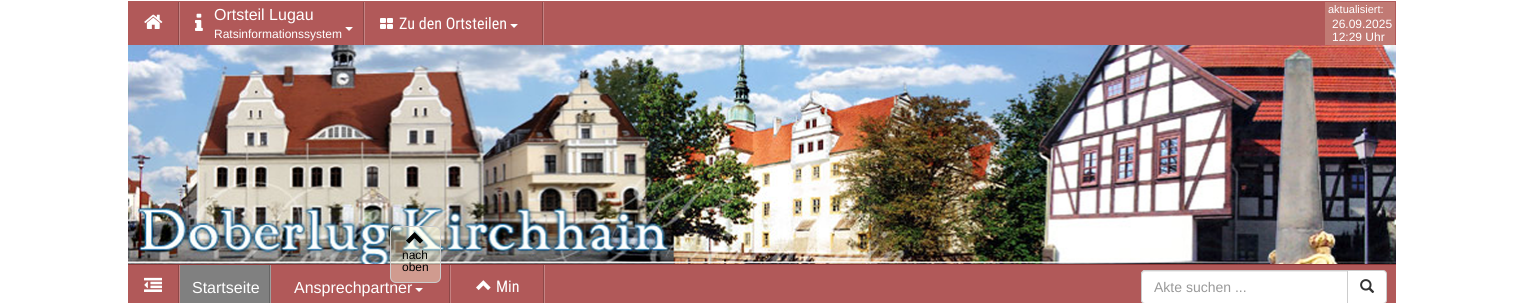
import math
import cairocffi as cairo

surface = cairo.ImageSurface(cairo.FORMAT_RGB24, 1524, 303)
ctx = cairo.Context(surface)
options = cairo.FontOptions()
options.set_hint_metrics(cairo.HINT_METRICS_OFF)
options.set_hint_style(cairo.HINT_STYLE_NONE)
ctx.set_font_options(options)
ctx.set_miter_limit(4)


def rgb(r, g, b):
    ctx.set_source_rgb(r / 255, g / 255, b / 255)


def face(family, size, italic, bold):
    ctx.select_font_face(family, cairo.FONT_SLANT_ITALIC if italic else cairo.FONT_SLANT_NORMAL, cairo.FONT_WEIGHT_BOLD if bold else cairo.FONT_WEIGHT_NORMAL)
    ctx.set_font_size(size)


def label(x, y, s):
    ctx.move_to(x, y)
    ctx.show_text(s)


def rect(x, y, w, h):
    ctx.rectangle(x, y, w, h)
    ctx.fill()


def rrect(x, y, w, h, r):
    ctx.new_sub_path()
    for i, (u, v) in enumerate([(x + w - r, y + h - r), (x + r, y + h - r), (x + r, y + r), (x + w - r, y + r)]):
        ctx.arc(u, v, r, i * math.pi / 2, (i + 1) * math.pi / 2)
    ctx.close_path()


def image(path, x, y, w, h):
    ctx.save()
    ctx.set_source_surface(cairo.ImageSurface.create_from_png(path), x, y)
    ctx.rectangle(x, y, w, h)
    ctx.fill()
    ctx.restore()


rgb(255, 255, 255)
ctx.paint()
rgb(177, 89, 89)
rect(128, 1, 1268, 302)
rgb(142, 71, 71)
rect(178, 2, 1, 44)
rgb(197, 131, 131)
rect(179, 2, 1, 44)
image('image0.png', 144, 14, 19, 15)
rgb(142, 71, 71)
rect(363, 2, 1, 44)
rgb(197, 131, 131)
rect(364, 2, 1, 44)
image('image1.png', 195, 13, 8, 18)
face('Liberation Sans', 16, 0, 0)
rgb(255, 255, 255)
label(214, 20, 'Ortsteil Lugau')
face('Liberation Sans', 12, 0, 0)
label(214, 38, 'Ratsinformationssystem')
image('image2.png', 345, 27, 8, 4)
rgb(142, 71, 71)
rect(542, 2, 1, 44)
rgb(197, 131, 131)
rect(543, 2, 1, 44)
image('image3.png', 380, 18, 13, 11)
face('Roboto Condensed', 16, 0, 0)
rgb(255, 255, 255)
label(399, 29, 'Zu den Ortsteilen')
image('image4.png', 510, 24, 8, 4)
rgb(193, 122, 116)
rect(1325, 2, 70, 43)
face('Liberation Sans', 11, 0, 0)
rgb(255, 255, 255)
label(1328, 13, 'aktualisiert:')
face('Liberation Sans', 12, 0, 0)
label(1332, 28, '26.09.2025')
label(1332, 41, '12:29 Uhr')
image('image5.png', 128, 45, 1268, 219)
rgb(138, 54, 54)
rect(128, 264, 1268, 1)
rgb(142, 71, 71)
rect(178, 265, 1, 38)
rgb(197, 131, 131)
rect(179, 265, 1, 38)
image('image6.png', 144, 277, 18, 15)
rgb(128, 128, 128)
rect(180, 265, 89, 38)
rgb(102, 102, 102)
rect(269, 265, 1, 38)
rgb(160, 160, 160)
rect(270, 265, 1, 38)
face('Liberation Sans', 16, 0, 0)
rgb(255, 255, 255)
label(192, 293, 'Startseite')
rgb(142, 71, 71)
rect(449, 265, 1, 38)
rgb(197, 131, 131)
rect(450, 265, 1, 38)
rgb(255, 255, 255)
label(294, 293, 'Ansprechpartner')
image('image4.png', 415, 288, 8, 4)
rgb(142, 71, 71)
rect(543, 265, 1, 38)
rgb(197, 131, 131)
rect(544, 265, 1, 38)
image('image7.png', 476, 280, 15, 11)
face('Roboto Condensed', 16, 0, 0)
rgb(255, 255, 255)
label(496, 292, 'Min')
ctx.new_path()
ctx.move_to(1145, 270)
ctx.line_to(1348, 270)
ctx.line_to(1348, 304)
ctx.line_to(1145, 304)
ctx.curve_to(1143, 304, 1141, 302, 1141, 300)
ctx.line_to(1141, 274)
ctx.curve_to(1141, 272, 1143, 270, 1145, 270)
ctx.close_path()
ctx.fill()
rgb(236, 236, 236)
ctx.new_path()
ctx.move_to(1145, 272)
ctx.line_to(1347, 272)
ctx.line_to(1347, 271)
ctx.line_to(1144, 271)
ctx.curve_to(1142, 272, 1142, 273, 1142, 275)
ctx.curve_to(1142, 273, 1143, 272, 1145, 272)
ctx.close_path()
ctx.fill()
ctx.new_path()
ctx.move_to(1145, 270.5)
ctx.line_to(1347.5, 270.5)
ctx.line_to(1347.5, 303.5)
ctx.line_to(1145, 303.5)
ctx.curve_to(1143, 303.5, 1141.5, 302, 1141.5, 300)
ctx.line_to(1141.5, 274)
ctx.curve_to(1141.5, 272, 1143, 270.5, 1145, 270.5)
ctx.close_path()
rgb(204, 204, 204)
ctx.set_line_width(1)
ctx.stroke()
face('Liberation Sans', 14, 0, 0)
rgb(153, 153, 153)
label(1154, 292, 'Akte suchen ...')
rgb(255, 255, 255)
ctx.new_path()
ctx.move_to(1347.5, 270.5)
ctx.line_to(1383, 270.5)
ctx.curve_to(1385, 270.5, 1386.5, 272, 1386.5, 274)
ctx.line_to(1386.5, 300)
ctx.curve_to(1386.5, 302, 1385, 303.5, 1383, 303.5)
ctx.line_to(1347.5, 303.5)
ctx.close_path()
ctx.fill_preserve()
rgb(204, 204, 204)
ctx.stroke()
image('image8.png', 1360, 279, 15, 14)
ctx.set_source_rgba(1, 1, 0.882, 0.4)
rrect(390.5, 226.5, 50, 56, 5.5)
ctx.fill_preserve()
rgb(204, 204, 204)
ctx.stroke()
image('image9.png', 406, 232, 17, 12)
face('Liberation Sans', 12, 0, 0)
rgb(0, 0, 0)
label(402, 259, 'nach')
label(402, 271, 'oben')
surface.write_to_png('render.png')
